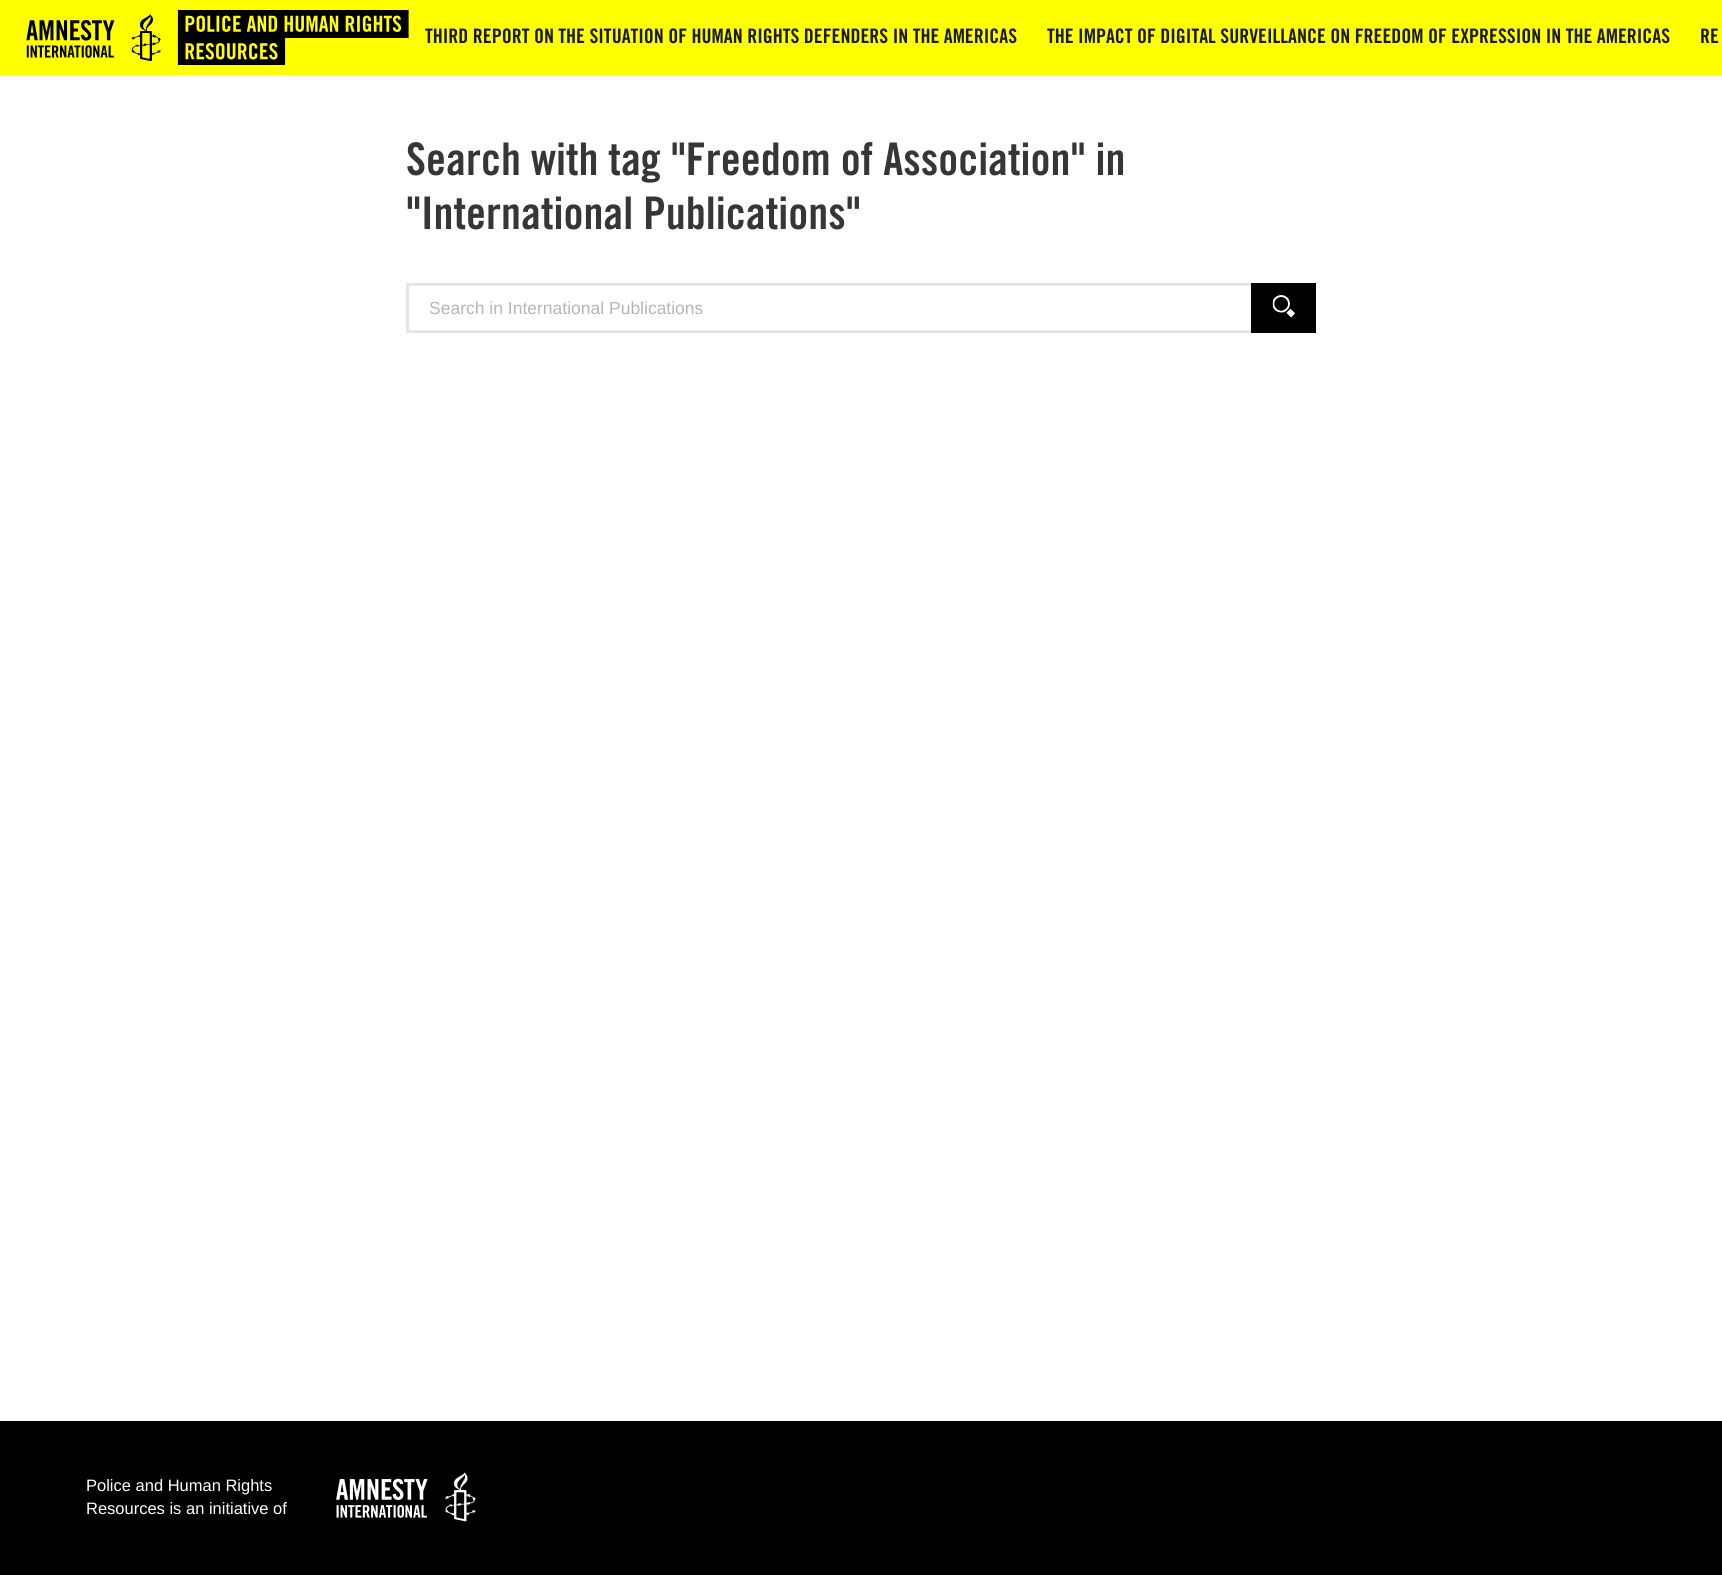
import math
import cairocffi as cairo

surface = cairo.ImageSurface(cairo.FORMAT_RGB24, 1722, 1575)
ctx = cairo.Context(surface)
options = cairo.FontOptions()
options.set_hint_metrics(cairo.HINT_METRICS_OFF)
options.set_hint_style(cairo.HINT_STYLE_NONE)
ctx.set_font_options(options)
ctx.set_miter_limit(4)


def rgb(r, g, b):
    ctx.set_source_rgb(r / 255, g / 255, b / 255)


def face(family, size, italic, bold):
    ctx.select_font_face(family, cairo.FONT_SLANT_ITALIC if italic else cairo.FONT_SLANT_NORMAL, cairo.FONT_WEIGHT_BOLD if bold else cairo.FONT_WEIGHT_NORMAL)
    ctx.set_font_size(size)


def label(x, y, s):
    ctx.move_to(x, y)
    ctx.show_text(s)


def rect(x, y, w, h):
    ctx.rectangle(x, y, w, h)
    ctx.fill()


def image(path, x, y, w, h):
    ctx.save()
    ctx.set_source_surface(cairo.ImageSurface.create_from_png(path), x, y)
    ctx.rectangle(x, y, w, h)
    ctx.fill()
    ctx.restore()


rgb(255, 255, 255)
ctx.paint()
rgb(255, 255, 0)
rect(0, 0, 1722, 75)
image('image0.png', 26, 10, 383, 55)
face('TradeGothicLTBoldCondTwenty', 20, 0, 0)
rgb(26, 26, 26)
label(425, 43, 'THIRD REPORT ON THE SITUATION OF HUMAN RIGHTS DEFENDERS IN THE AMERICAS')
label(1047, 43, 'THE IMPACT OF DIGITAL SURVEILLANCE ON FREEDOM OF EXPRESSION IN THE AMERICAS')
label(1700, 43, 'RE')
face('TradeGothicLTBoldCondTwenty', 45, 0, 0)
rgb(54, 54, 54)
label(406, 175, 'Search with tag "Freedom of Association" in')
label(406, 229, '"International Publications"')
rgb(229, 229, 229)
rect(406, 283, 845, 3)
rect(406, 330, 845, 3)
rect(406, 283, 3, 50)
face('Liberation Sans', 17.5, 0, 0)
rgb(182, 182, 182)
label(429, 314, 'Search in International Publications')
rgb(0, 0, 0)
rect(1251, 283, 65, 50)
image('image1.png', 1272, 295, 23, 23)
rect(0, 1421, 1722, 154)
face('Liberation Sans', 16.5, 0, 0)
rgb(255, 255, 255)
label(86, 1491, 'Police and Human Rights')
label(86, 1514, 'Resources is an initiative of')
image('image2.png', 336, 1472, 140, 50)
surface.write_to_png('render.png')
